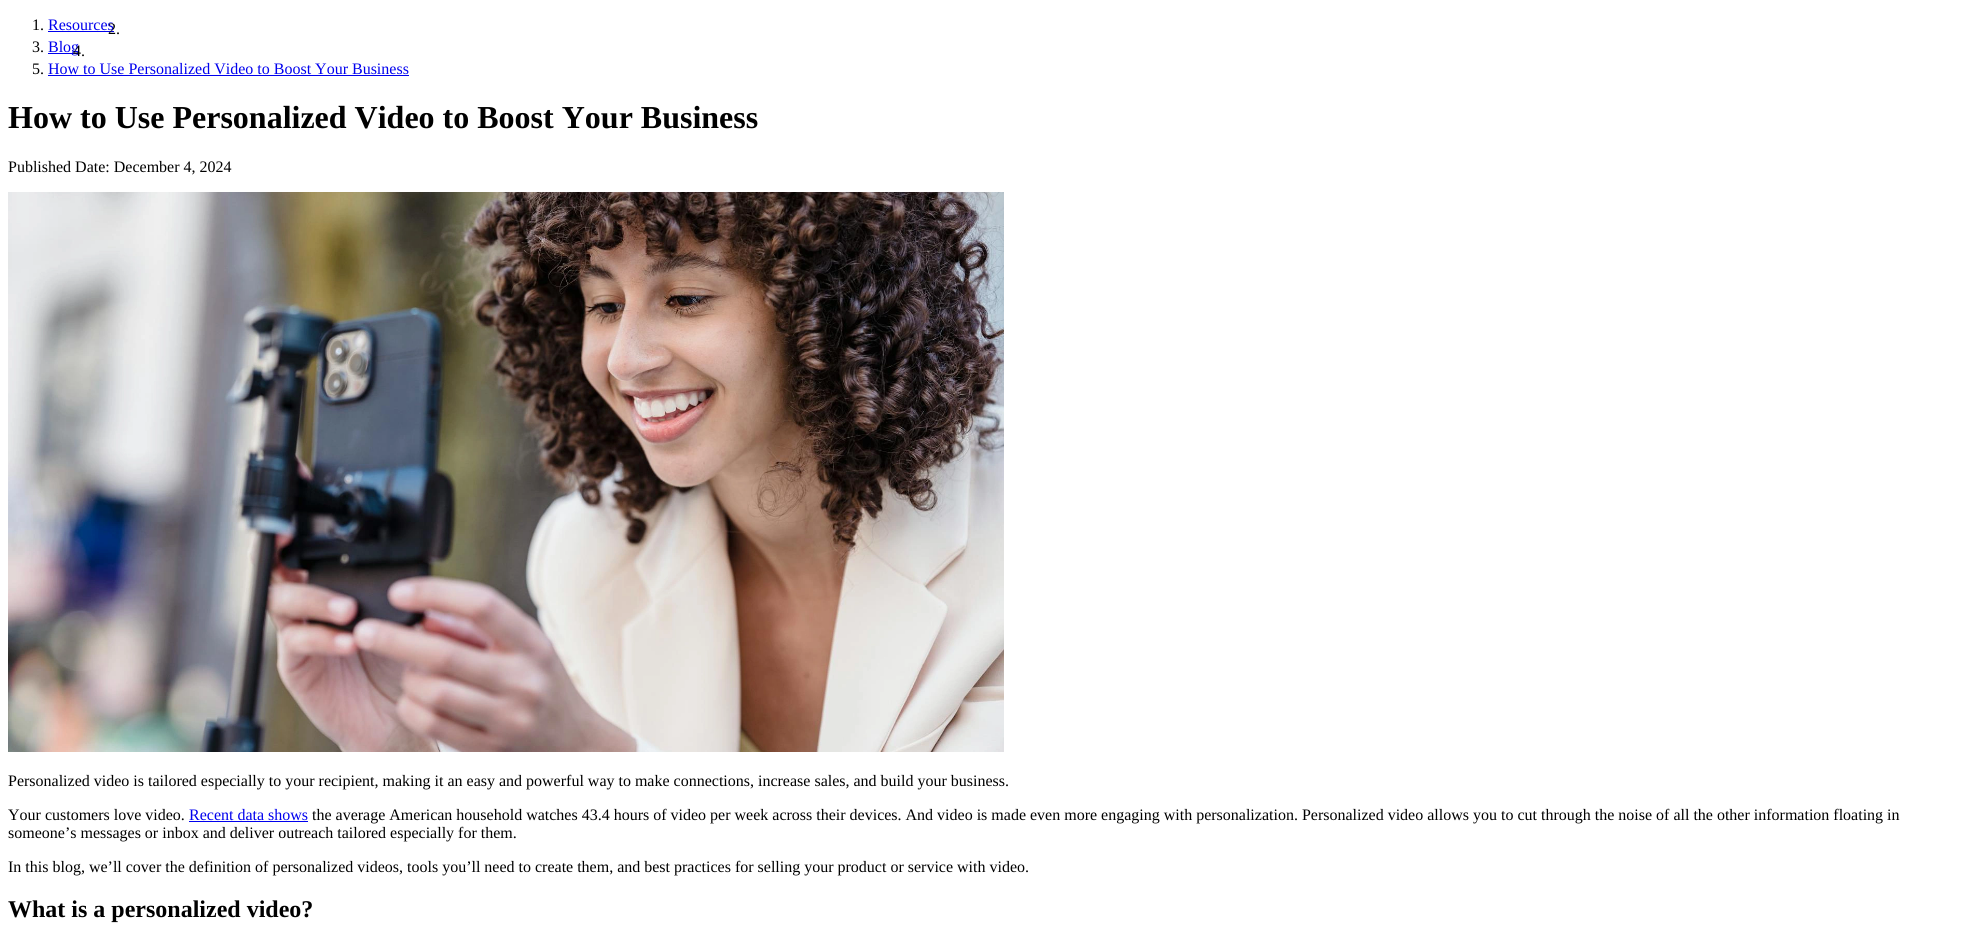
import math
import cairocffi as cairo

surface = cairo.ImageSurface(cairo.FORMAT_RGB24, 1973, 939)
ctx = cairo.Context(surface)
options = cairo.FontOptions()
options.set_hint_metrics(cairo.HINT_METRICS_OFF)
options.set_hint_style(cairo.HINT_STYLE_NONE)
ctx.set_font_options(options)
ctx.set_miter_limit(4)


def rgb(r, g, b):
    ctx.set_source_rgb(r / 255, g / 255, b / 255)


def face(family, size, italic, bold):
    ctx.select_font_face(family, cairo.FONT_SLANT_ITALIC if italic else cairo.FONT_SLANT_NORMAL, cairo.FONT_WEIGHT_BOLD if bold else cairo.FONT_WEIGHT_NORMAL)
    ctx.set_font_size(size)


def label(x, y, s):
    ctx.move_to(x, y)
    ctx.show_text(s)


def rect(x, y, w, h):
    ctx.rectangle(x, y, w, h)
    ctx.fill()


def image(path, x, y, w, h):
    ctx.save()
    ctx.set_source_surface(cairo.ImageSurface.create_from_png(path), x, y)
    ctx.rectangle(x, y, w, h)
    ctx.fill()
    ctx.restore()


rgb(255, 255, 255)
ctx.paint()
face('Liberation Serif', 16, 0, 0)
rgb(0, 0, 0)
label(32, 30, '1.')
rgb(0, 0, 238)
label(48, 30, 'Resources')
rect(48, 31, 66, 1)
rgb(0, 0, 0)
label(108, 34, '2.')
label(32, 52, '3.')
rgb(0, 0, 238)
rect(48, 53, 31, 1)
label(48, 52, 'Blog')
rgb(0, 0, 0)
label(73, 56, '4.')
label(32, 74, '5.')
rgb(0, 0, 238)
label(48, 74, 'How to Use Personalized Video to Boost Your Business')
rect(48, 75, 361, 1)
face('Liberation Serif', 32, 0, 1)
rgb(0, 0, 0)
label(8, 128, 'How to Use Personalized Video to Boost Your Business')
face('Liberation Serif', 16, 0, 0)
label(8, 172, 'Published Date: December 4, 2024')
image('image0.png', 8, 192, 996, 560)
label(8, 786, 'Personalized video is tailored especially to your recipient, making it an easy and powerful way to make connections, increase sales, and build your business.')
label(8, 820, 'Your customers love video.')
rgb(0, 0, 238)
label(189, 820, 'Recent data shows')
rect(189, 821, 119, 1)
rgb(0, 0, 0)
label(312, 820, 'the average American household watches 43.4 hours of video per week across their devices. And video is made even more engaging with personalization. Personalized video allows you to cut through the noise of all the other information floating in')
label(8, 838, 'someone’s messages or inbox and deliver outreach tailored especially for them.')
label(8, 872, 'In this blog, we’ll cover the definition of personalized videos, tools you’ll need to create them, and best practices for selling your product or service with video.')
face('Liberation Serif', 24, 0, 1)
label(8, 917, 'What is a personalized video?')
surface.write_to_png('render.png')
